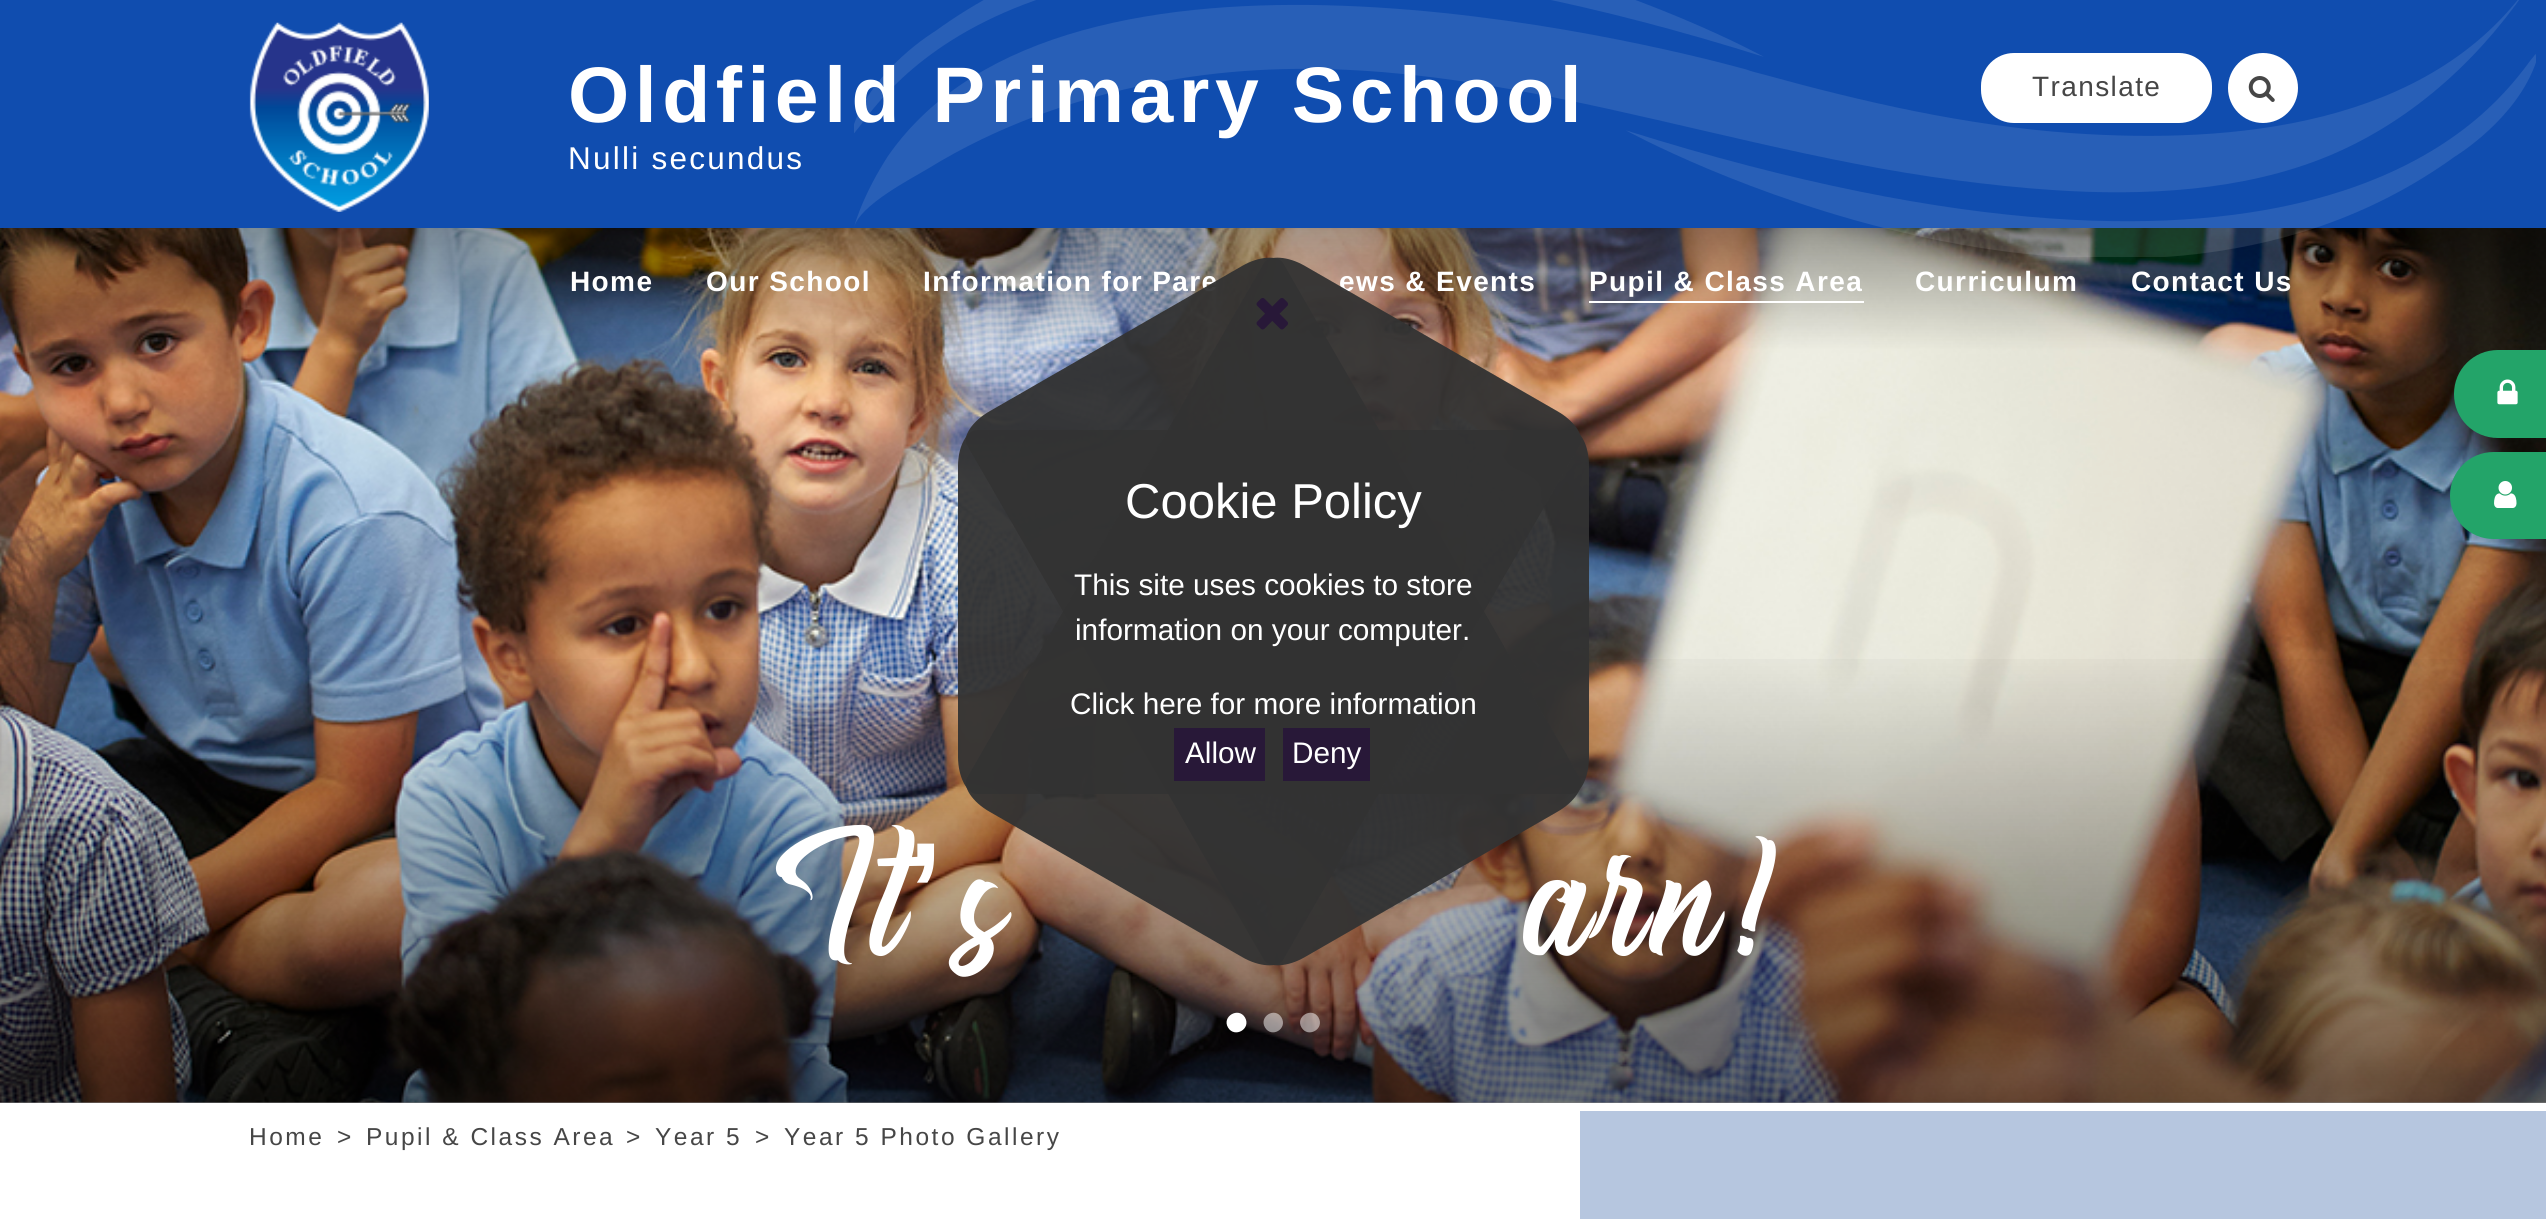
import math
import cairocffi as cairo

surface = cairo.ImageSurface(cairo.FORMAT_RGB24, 2546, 1219)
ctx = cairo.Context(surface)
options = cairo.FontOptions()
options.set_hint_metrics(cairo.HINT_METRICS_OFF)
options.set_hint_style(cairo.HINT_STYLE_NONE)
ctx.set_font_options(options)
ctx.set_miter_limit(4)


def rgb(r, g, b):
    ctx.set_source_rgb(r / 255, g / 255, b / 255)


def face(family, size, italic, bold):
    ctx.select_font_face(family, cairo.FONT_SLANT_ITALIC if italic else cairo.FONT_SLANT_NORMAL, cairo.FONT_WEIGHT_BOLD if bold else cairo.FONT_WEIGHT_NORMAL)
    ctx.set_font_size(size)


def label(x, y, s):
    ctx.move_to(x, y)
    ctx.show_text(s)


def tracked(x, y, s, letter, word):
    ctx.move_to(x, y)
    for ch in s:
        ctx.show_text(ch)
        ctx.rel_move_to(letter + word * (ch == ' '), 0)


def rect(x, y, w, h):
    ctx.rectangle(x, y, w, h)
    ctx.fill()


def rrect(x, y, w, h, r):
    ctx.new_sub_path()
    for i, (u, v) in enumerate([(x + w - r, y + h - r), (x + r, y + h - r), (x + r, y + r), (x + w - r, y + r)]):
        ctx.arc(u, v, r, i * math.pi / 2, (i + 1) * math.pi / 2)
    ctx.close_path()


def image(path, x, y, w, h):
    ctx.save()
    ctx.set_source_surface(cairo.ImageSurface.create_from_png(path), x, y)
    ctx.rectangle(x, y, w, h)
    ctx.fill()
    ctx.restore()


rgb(255, 255, 255)
ctx.paint()
rgb(16, 77, 175)
rect(0, 0, 2546, 228)
image('image5.png', 0, 228, 2546, 875)
image('image0.png', 854, 0, 1682, 257)
image('image1.png', 249, 22, 180, 190)
face('Liberation Sans', 78.75, 0, 1)
rgb(255, 255, 255)
tracked(568, 122, 'Oldfield Primary School', 5.5, 0)
face('Liberation Sans', 31.5, 0, 0)
tracked(568, 169, 'Nulli secundus', 2.25, 0)
rrect(1981, 53, 231, 70, 33)
ctx.fill()
face('Liberation Sans', 28, 0, 0)
rgb(70, 70, 70)
tracked(2032, 96, 'Translate', 1.4, 0)
rgb(255, 255, 255)
ctx.new_path()
ctx.arc(2263, 88, 35, 0, 2 * math.pi)
ctx.fill()
image('image2.png', 2248, 76, 27, 26)
face('Liberation Sans', 28, 0, 1)
tracked(570, 291, 'Home', 1.4, 0)
tracked(706, 291, 'Our School', 1.4, 0)
tracked(923, 291, 'Information for Pare', 1.4, 0)
tracked(1339, 291, 'ews & Events', 1.4, 0)
tracked(1589, 291, 'Pupil & Class Area', 1.4, 0)
rect(1589, 301, 275, 2)
tracked(1915, 291, 'Curriculum', 1.4, 0)
tracked(2131, 291, 'Contact Us', 1.4, 0)
rgb(35, 164, 105)
ctx.new_path()
ctx.move_to(2498, 350)
ctx.line_to(2546, 350)
ctx.line_to(2546, 438)
ctx.line_to(2498, 438)
ctx.curve_to(2473.5, 438, 2454, 418.5, 2454, 394)
ctx.curve_to(2454, 369.5, 2473.5, 350, 2498, 350)
ctx.close_path()
ctx.fill()
image('image3.png', 2497, 379, 21, 26)
ctx.new_path()
ctx.move_to(2493.5, 452)
ctx.line_to(2546, 452)
ctx.line_to(2546, 539)
ctx.line_to(2493.5, 539)
ctx.curve_to(2469.5, 539, 2450, 519.5, 2450, 495.5)
ctx.curve_to(2450, 471.5, 2469.5, 452, 2493.5, 452)
ctx.close_path()
ctx.fill()
image('image4.png', 2494, 481, 23, 27)
gradient = cairo.LinearGradient(1273, 639, 1273, 1103)
gradient.add_color_stop_rgba(0, 0, 0, 0, 0)
gradient.add_color_stop_rgba(1, 0, 0, 0, 0.5)
ctx.set_source(gradient)
rect(0, 659, 2546, 444)
face('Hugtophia', 175, 0, 0)
rgb(255, 255, 255)
tracked(776, 964, 'It', 9, 0)
tracked(1523, 964, 'arn!', 9, 0)
face('Liberation Sans', 175, 0, 0)
tracked(906, 964, '’', 9, 0)
face('Hugtophia', 175, 0, 0)
tracked(954, 964, 's', 9, 0)
ctx.new_path()
ctx.move_to(1245, 1017.5)
ctx.curve_to(1251.5, 1029, 1234.5, 1038.5, 1228, 1027.5)
ctx.curve_to(1221.5, 1016.5, 1238.5, 1006.5, 1245, 1017.5)
ctx.close_path()
ctx.fill()
ctx.set_source_rgba(1, 1, 1, 0.5)
ctx.new_path()
ctx.move_to(1281.5, 1017.5)
ctx.curve_to(1288, 1029, 1271.5, 1038.5, 1265, 1027.5)
ctx.curve_to(1258.5, 1016.5, 1275, 1006.5, 1281.5, 1017.5)
ctx.close_path()
ctx.move_to(1318.5, 1017.5)
ctx.curve_to(1325, 1029, 1308, 1038.5, 1301.5, 1027.5)
ctx.curve_to(1295, 1016.5, 1312, 1006.5, 1318.5, 1017.5)
ctx.close_path()
ctx.fill()
face('Liberation Sans', 24.5, 0, 0)
rgb(70, 70, 70)
tracked(249, 1145, 'Home', 2.5, 0)
tracked(337, 1145, '>', 2.5, 0)
tracked(366, 1145, 'Pupil & Class Area', 2.5, 0)
tracked(626, 1145, '>', 2.5, 0)
tracked(655, 1145, 'Year 5', 2.5, 0)
tracked(755, 1145, '>', 2.5, 0)
tracked(784, 1145, 'Year 5 Photo Gallery', 2.5, 0)
rgb(182, 198, 223)
rect(1580, 1111, 966, 108)
ctx.set_source_rgba(0.2, 0.2, 0.2, 0.95)
ctx.new_path()
ctx.move_to(1589, 466)
ctx.line_to(1589, 757)
ctx.curve_to(1589, 777, 1581, 794, 1571, 794)
ctx.line_to(977, 794)
ctx.curve_to(967, 794, 958, 777, 958, 757)
ctx.line_to(958, 466)
ctx.curve_to(958, 446, 967, 430, 977, 430)
ctx.line_to(1571, 430)
ctx.curve_to(1581, 430, 1589, 446, 1589, 466)
ctx.close_path()
ctx.fill()
ctx.new_path()
ctx.move_to(1557, 812)
ctx.line_to(1305, 957)
ctx.curve_to(1288, 967, 1269, 968, 1264, 960)
ctx.line_to(967, 445)
ctx.curve_to(962, 437, 972, 421, 990, 411)
ctx.line_to(1242, 266)
ctx.curve_to(1259, 256, 1278, 255, 1283, 263)
ctx.line_to(1580, 778)
ctx.curve_to(1585, 786, 1575, 802, 1557, 812)
ctx.close_path()
ctx.fill()
ctx.new_path()
ctx.move_to(1305, 266)
ctx.line_to(1557, 411)
ctx.curve_to(1575, 421, 1585, 437, 1580, 445)
ctx.line_to(1283, 960)
ctx.curve_to(1278, 968, 1259, 967, 1242, 957)
ctx.line_to(990, 812)
ctx.curve_to(972, 802, 962, 786, 967, 778)
ctx.line_to(1264, 263)
ctx.curve_to(1269, 255, 1288, 256, 1305, 266)
ctx.close_path()
ctx.fill()
image('image6.png', 1256, 298, 32, 32)
face('Liberation Sans', 49, 0, 0)
rgb(255, 255, 255)
label(1125, 518, 'Cookie Policy')
face('Liberation Sans', 29.75, 0, 0)
label(1074, 595, 'This site uses cookies to store')
label(1075, 640, 'information on your computer.')
label(1070, 714, 'Click here for more information')
rgb(40, 24, 56)
rect(1174, 728, 91, 53)
rgb(255, 255, 255)
label(1185, 763, 'Allow')
rgb(40, 24, 56)
rect(1283, 728, 87, 53)
rgb(255, 255, 255)
label(1292, 763, 'Deny')
surface.write_to_png('render.png')
